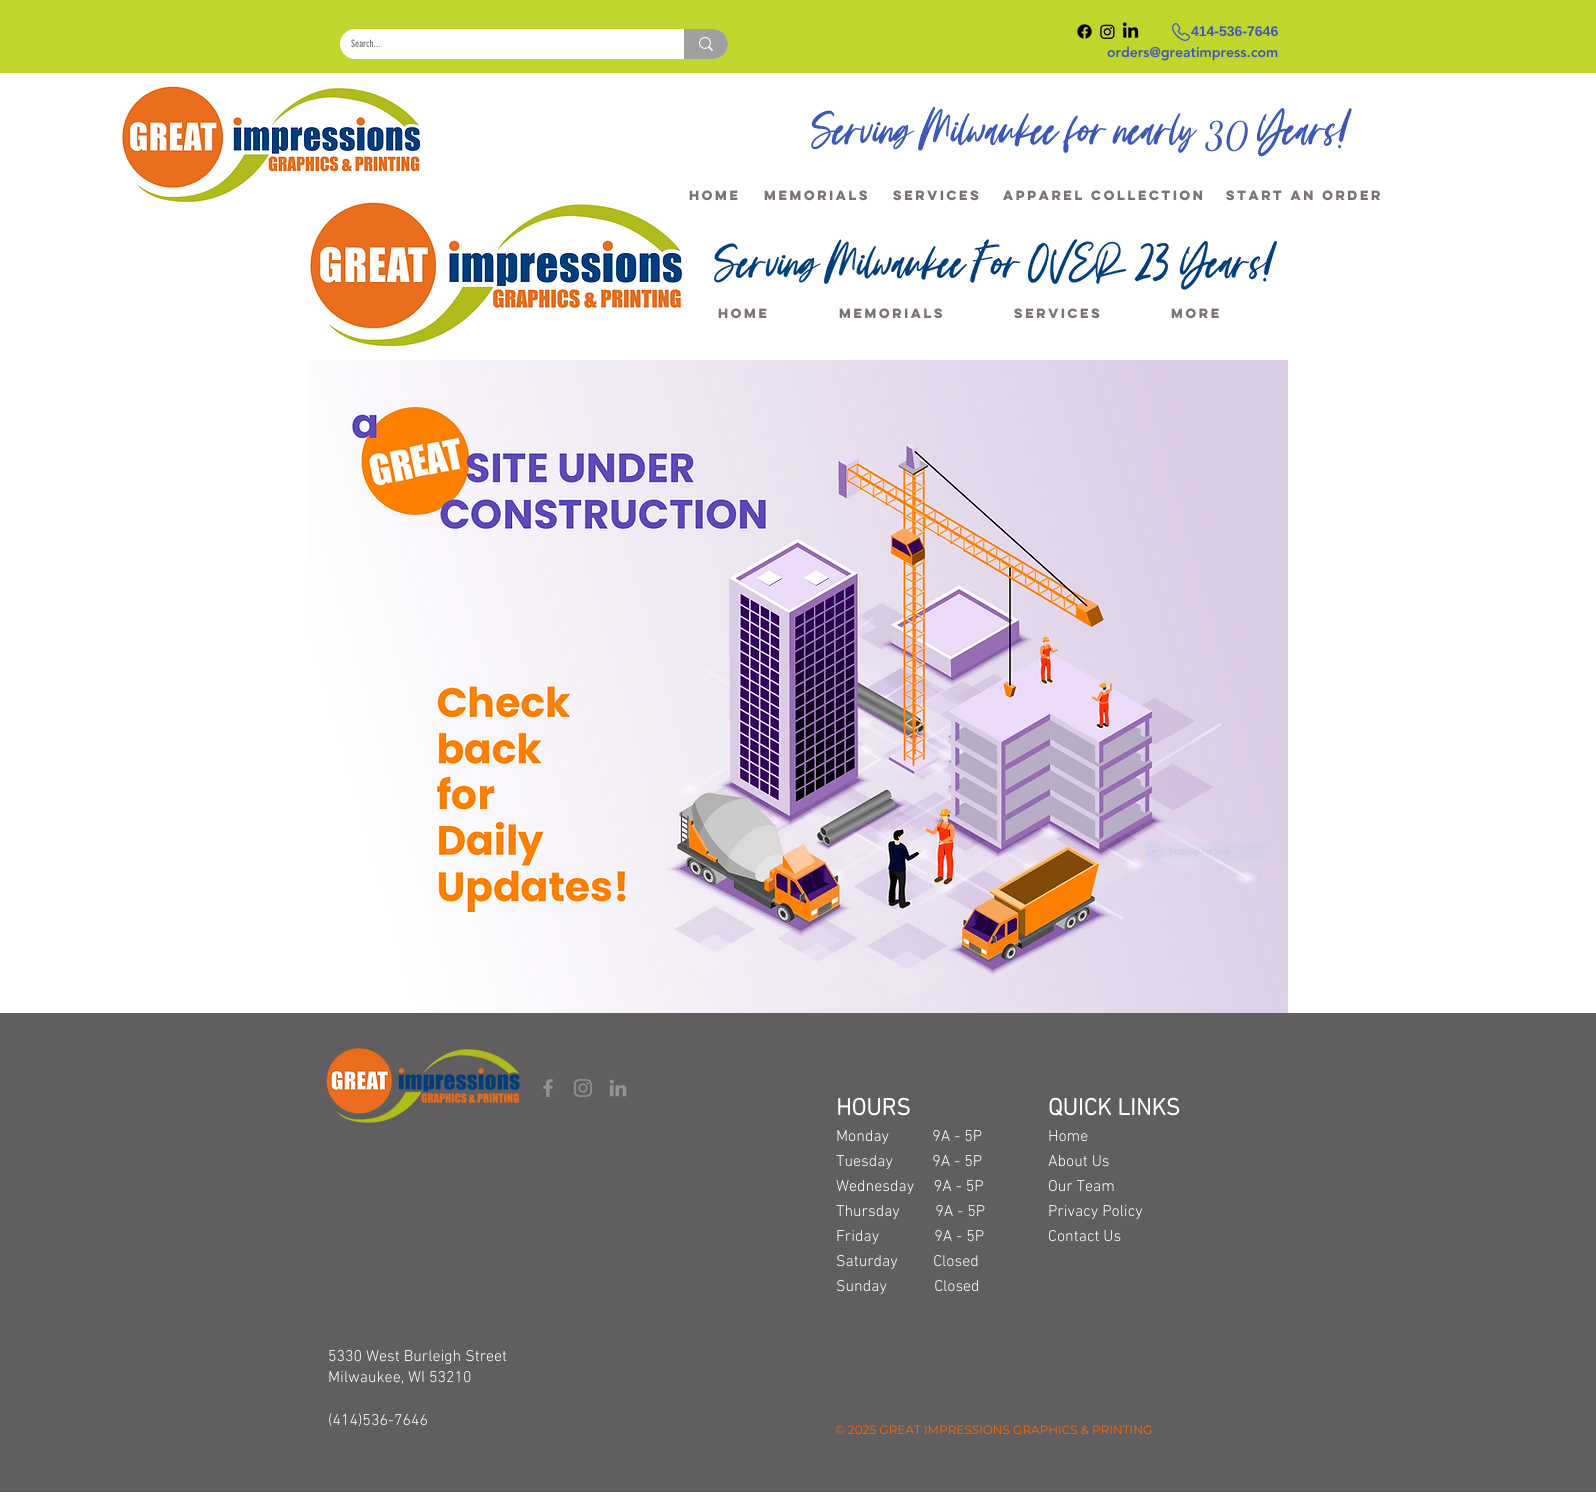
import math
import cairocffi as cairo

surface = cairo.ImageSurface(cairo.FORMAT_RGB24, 1596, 1497)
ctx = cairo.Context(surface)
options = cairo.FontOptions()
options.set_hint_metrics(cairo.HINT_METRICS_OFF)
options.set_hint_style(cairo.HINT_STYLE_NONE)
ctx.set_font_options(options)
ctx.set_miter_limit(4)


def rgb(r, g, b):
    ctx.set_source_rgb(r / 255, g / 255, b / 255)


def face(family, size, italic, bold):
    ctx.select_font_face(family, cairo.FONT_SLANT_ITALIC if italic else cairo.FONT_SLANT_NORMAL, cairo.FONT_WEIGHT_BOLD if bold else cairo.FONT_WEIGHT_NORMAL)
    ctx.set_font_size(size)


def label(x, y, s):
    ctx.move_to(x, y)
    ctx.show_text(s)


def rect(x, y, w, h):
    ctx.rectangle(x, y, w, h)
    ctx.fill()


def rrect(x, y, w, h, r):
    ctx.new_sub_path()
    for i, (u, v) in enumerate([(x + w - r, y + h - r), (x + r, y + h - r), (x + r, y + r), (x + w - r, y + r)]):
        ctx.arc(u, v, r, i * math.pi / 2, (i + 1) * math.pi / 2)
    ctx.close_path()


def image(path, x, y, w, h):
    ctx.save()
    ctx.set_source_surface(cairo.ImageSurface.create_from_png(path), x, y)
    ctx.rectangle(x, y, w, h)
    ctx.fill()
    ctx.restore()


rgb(255, 255, 255)
ctx.paint()
rgb(192, 214, 45)
rect(0, 0, 1596, 73)
image('image0.png', 1077, 24, 15, 15)
image('image1.png', 1100, 24, 15, 15)
image('image2.png', 1122, 22, 17, 16)
image('image3.png', 1172, 23, 18, 18)
face('Liberation Sans', 14, 0, 1)
rgb(59, 88, 184)
label(1191, 36, '414-536-7646')
rgb(255, 255, 255)
rrect(340, 29, 388, 30, 15)
ctx.fill()
face('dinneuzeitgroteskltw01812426', 10, 0, 0)
rgb(120, 120, 120)
label(351, 47, 'Search...')
rgb(160, 160, 159)
ctx.new_path()
ctx.move_to(684, 29)
ctx.line_to(713, 29)
ctx.curve_to(721.5, 29, 728, 35.5, 728, 44)
ctx.curve_to(728, 52.5, 721.5, 59, 713, 59)
ctx.line_to(684, 59)
ctx.close_path()
ctx.fill()
image('image4.png', 699, 37, 14, 14)
face('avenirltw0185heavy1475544 Black', 14, 0, 0)
rgb(59, 88, 184)
label(1107, 57, 'orders@greatimpress.com')
image('image5.png', 122, 86, 300, 116)
face('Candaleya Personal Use', 38, 0, 0)
label(812, 148, 'Serving Milwaukee for nearly')
face('Dancing Script', 38, 0, 0)
label(1205, 148, '30')
face('Candaleya Personal Use', 38, 0, 0)
label(1258, 148, 'Years!')
face('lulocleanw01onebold', 12, 0, 1)
rgb(122, 115, 111)
label(689, 200, 'HOME')
label(764, 200, 'Memorials')
label(893, 200, 'SERVICES')
label(1003, 200, 'Apparel Collection')
label(1226, 200, 'START AN ORDER')
image('image6.png', 309, 201, 374, 146)
image('image7.png', 714, 239, 563, 51)
label(718, 318, 'HOME')
label(839, 318, 'Memorials')
label(1014, 318, 'SERVICES')
label(1171, 318, 'More')
image('image8.png', 308, 360, 980, 653)
rgb(96, 94, 94)
rect(0, 1013, 1596, 479)
image('image9.png', 326, 1048, 194, 75)
image('image10.png', 543, 1079, 10, 19)
image('image11.png', 574, 1079, 18, 18)
image('image12.png', 609, 1079, 18, 18)
face('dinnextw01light', 24, 0, 1)
rgb(255, 255, 255)
label(836, 1115, 'HOURS')
face('dinnextw01light Light', 16, 0, 0)
label(836, 1141, 'Monday           9A - 5P')
label(836, 1166, 'Tuesday          9A - 5P')
label(836, 1191, 'Wednesday     9A - 5P')
label(836, 1216, 'Thursday         9A - 5P')
label(836, 1241, 'Friday              9A - 5P')
label(836, 1266, 'Saturday         Closed')
label(836, 1291, 'Sunday            Closed')
face('dinnextw01light', 24, 0, 1)
label(1048, 1115, 'QUICK LINKS')
face('dinnextw01light Light', 16, 0, 0)
label(1048, 1141, 'Home')
label(1048, 1166, 'About Us')
label(1048, 1191, 'Our Team')
label(1048, 1216, 'Privacy Policy')
label(1048, 1241, 'Contact Us')
label(328, 1361, '5330 West Burleigh Street')
label(328, 1382, 'Milwaukee, WI 53210')
label(328, 1425, '(414)536-7646')
face('Montserrat', 12, 0, 0)
rgb(255, 106, 0)
label(835, 1434, '© 2025 GREAT IMPRESSIONS GRAPHICS & PRINTING')
surface.write_to_png('render.png')
